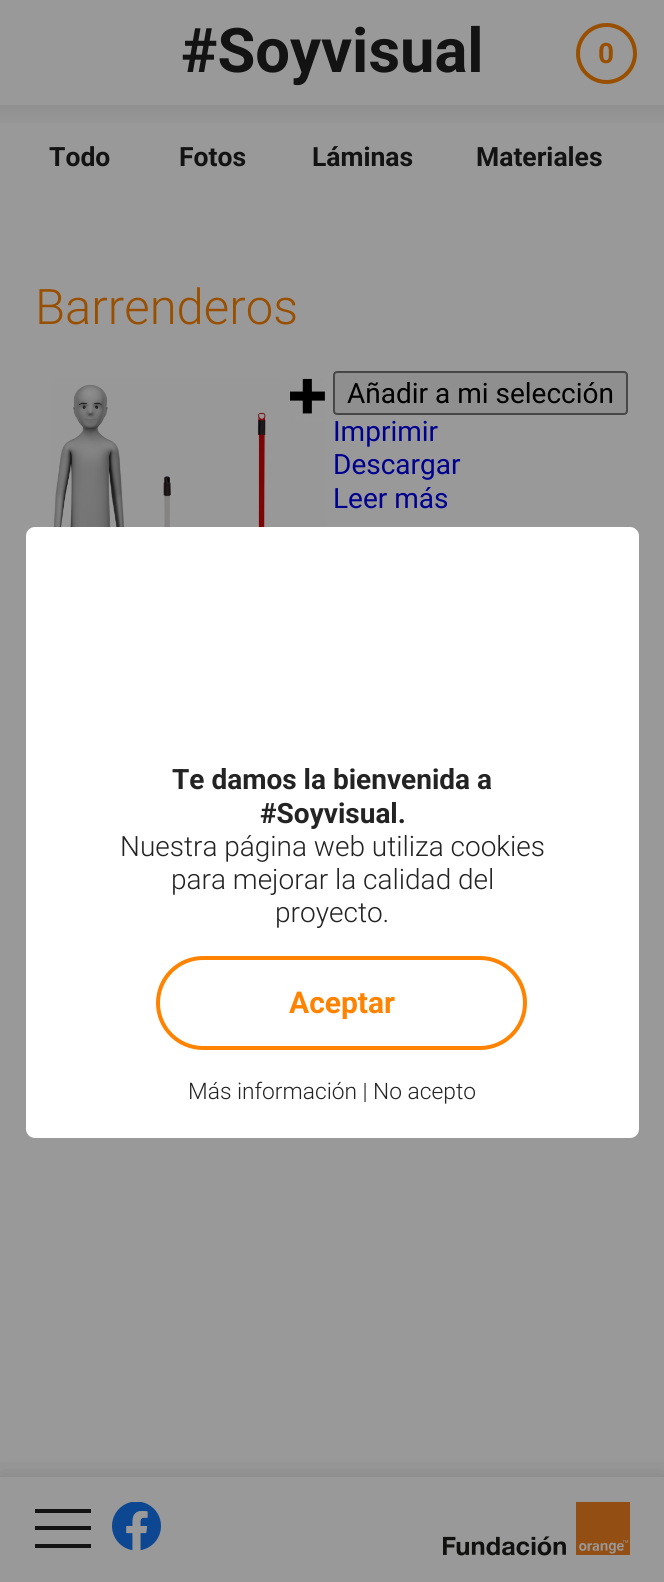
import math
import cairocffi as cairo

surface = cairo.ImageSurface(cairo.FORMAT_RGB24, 664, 1582)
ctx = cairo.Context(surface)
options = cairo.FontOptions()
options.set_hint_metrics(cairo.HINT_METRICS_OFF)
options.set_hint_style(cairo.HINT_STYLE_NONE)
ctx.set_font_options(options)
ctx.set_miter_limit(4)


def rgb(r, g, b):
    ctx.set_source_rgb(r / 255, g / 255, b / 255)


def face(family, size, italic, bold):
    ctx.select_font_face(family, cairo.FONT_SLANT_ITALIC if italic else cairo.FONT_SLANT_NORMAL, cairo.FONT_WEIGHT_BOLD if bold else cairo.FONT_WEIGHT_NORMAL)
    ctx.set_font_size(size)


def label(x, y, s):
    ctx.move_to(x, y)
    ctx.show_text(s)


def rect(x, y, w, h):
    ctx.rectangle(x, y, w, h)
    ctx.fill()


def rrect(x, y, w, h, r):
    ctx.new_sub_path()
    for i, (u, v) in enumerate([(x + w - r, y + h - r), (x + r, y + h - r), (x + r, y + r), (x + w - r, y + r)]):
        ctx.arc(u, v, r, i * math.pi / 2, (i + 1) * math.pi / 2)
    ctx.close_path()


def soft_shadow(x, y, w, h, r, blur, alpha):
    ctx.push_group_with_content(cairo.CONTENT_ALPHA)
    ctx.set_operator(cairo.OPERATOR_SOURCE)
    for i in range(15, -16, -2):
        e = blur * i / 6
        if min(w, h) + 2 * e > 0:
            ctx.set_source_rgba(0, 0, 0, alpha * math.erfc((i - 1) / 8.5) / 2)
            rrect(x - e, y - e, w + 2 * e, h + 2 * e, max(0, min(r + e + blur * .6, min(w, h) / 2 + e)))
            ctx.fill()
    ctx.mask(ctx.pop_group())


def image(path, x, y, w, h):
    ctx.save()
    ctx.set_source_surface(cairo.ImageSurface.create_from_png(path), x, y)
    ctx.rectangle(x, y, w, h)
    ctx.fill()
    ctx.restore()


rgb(153, 153, 153)
ctx.paint()
face('Roboto', 61.5, 0, 1)
rgb(19, 19, 19)
label(181, 72, '#Soyvisual')
ctx.new_path()
ctx.arc(606.5, 53.5, 28.5, 0, 2 * math.pi)
rgb(153, 79, 0)
ctx.set_line_width(4)
ctx.stroke()
face('Roboto', 28, 0, 1)
label(598, 63, '0')
gradient = cairo.LinearGradient(333, 201, 333, 105)
gradient.add_color_stop_rgba(0.75, 0.6, 0.6, 0.6, 1)
gradient.add_color_stop_rgba(1, 0.561, 0.561, 0.561, 1)
ctx.set_source(gradient)
rect(0, 105, 664, 18)
face('Roboto', 26.5, 0, 1)
rgb(19, 19, 19)
label(49, 166, 'Todo')
label(179, 166, 'Fotos')
label(312, 166, 'Láminas')
label(476, 166, 'Materiales')
face('Roboto Light', 49, 0, 0)
rgb(153, 79, 0)
label(35, 324, 'Barrenderos')
image('image0.png', 52, 378, 273, 149)
rgb(143, 143, 143)
rrect(334, 372, 293, 42, 3)
ctx.fill_preserve()
rgb(71, 71, 71)
ctx.set_line_width(2)
ctx.stroke()
face('Roboto', 28, 0, 0)
rgb(0, 0, 0)
label(347, 403, 'Añadir a mi selección')
rgb(0, 0, 143)
label(333, 441, 'Imprimir')
label(333, 474, 'Descargar')
label(333, 508, 'Leer más')
ctx.save()
ctx.rectangle(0, 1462, 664, 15)
ctx.clip()
rgb(16, 16, 16)
soft_shadow(0, 1475, 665, 105, 0, 12, 0.15)
ctx.restore()
rgb(19, 19, 19)
rect(35, 1526, 56, 4)
rect(35, 1509, 56, 4)
rect(35, 1544, 56, 4)
image('image1.png', 112, 1502, 49, 49)
image('image2.png', 443, 1502, 187, 54)
rgb(255, 255, 255)
rrect(26, 527, 613, 611, 9)
ctx.fill()
face('Roboto', 28, 0, 1)
rgb(35, 35, 35)
label(172, 789, 'Te damos la bienvenida a')
label(260, 823, '#Soyvisual.')
face('Roboto Light', 28, 0, 0)
label(120, 856, 'Nuestra página web utiliza cookies')
label(171, 889, 'para mejorar la calidad del')
label(275, 922, 'proyecto.')
face('Roboto Light', 22.75, 0, 0)
label(188, 1099, 'Más información | No acepto')
rrect(158, 958, 367, 90, 45)
rgb(255, 131, 0)
ctx.set_line_width(4)
ctx.stroke()
face('Roboto', 30, 0, 1)
label(289, 1013, 'Aceptar')
surface.write_to_png('render.png')
